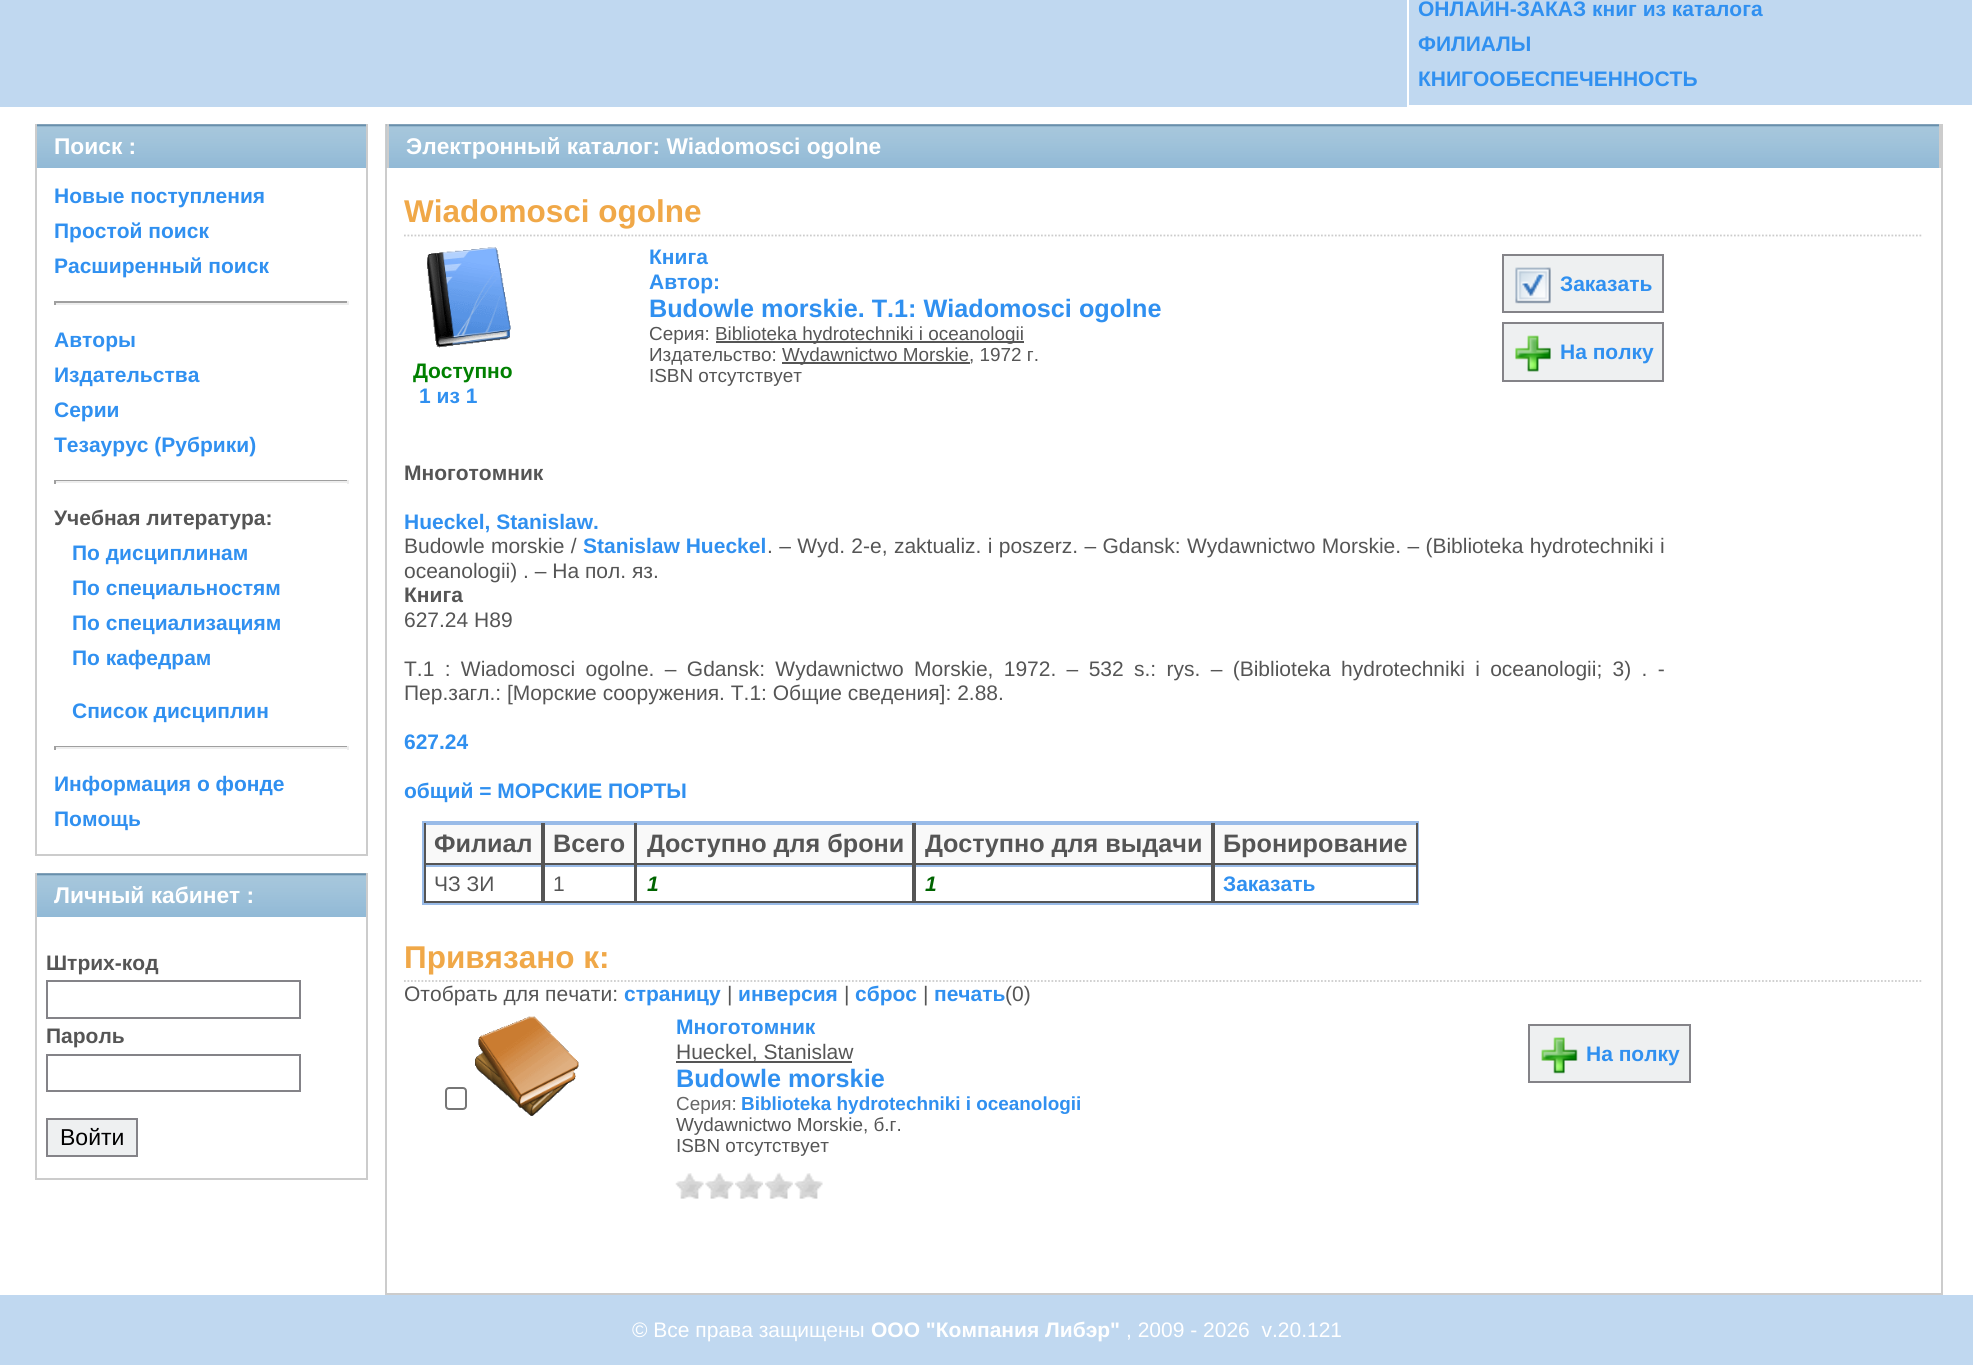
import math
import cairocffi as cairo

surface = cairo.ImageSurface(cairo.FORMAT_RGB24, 1973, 1365)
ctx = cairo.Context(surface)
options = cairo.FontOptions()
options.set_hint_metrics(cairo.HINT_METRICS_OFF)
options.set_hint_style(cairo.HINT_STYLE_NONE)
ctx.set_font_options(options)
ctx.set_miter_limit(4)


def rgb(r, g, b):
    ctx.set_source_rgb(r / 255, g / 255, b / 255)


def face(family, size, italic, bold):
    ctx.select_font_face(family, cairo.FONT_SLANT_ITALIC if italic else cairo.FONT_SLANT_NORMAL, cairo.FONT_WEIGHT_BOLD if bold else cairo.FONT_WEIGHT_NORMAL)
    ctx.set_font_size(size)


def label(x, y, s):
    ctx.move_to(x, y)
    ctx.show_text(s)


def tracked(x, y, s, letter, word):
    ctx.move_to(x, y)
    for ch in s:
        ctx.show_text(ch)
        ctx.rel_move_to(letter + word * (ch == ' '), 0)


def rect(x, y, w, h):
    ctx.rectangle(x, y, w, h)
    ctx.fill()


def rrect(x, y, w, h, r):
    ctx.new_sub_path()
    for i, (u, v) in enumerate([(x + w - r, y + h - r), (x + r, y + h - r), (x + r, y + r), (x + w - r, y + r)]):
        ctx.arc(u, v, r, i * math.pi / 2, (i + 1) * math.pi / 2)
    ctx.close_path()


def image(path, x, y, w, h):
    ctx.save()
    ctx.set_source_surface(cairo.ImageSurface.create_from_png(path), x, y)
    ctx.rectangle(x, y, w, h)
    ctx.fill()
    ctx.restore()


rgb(255, 255, 255)
ctx.paint()
rgb(192, 216, 240)
rect(0, 0, 1972, 107)
ctx.rectangle(1408, -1, 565, 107)
rgb(255, 255, 255)
ctx.stroke()
face('Liberation Sans', 21, 0, 1)
rgb(48, 144, 240)
label(1418, 16, 'ОНЛАЙН-ЗАКАЗ книг из каталога')
label(1418, 51, 'ФИЛИАЛЫ')
label(1418, 86, 'КНИГООБЕСПЕЧЕННОСТЬ')
image('image0.png', 37, 124, 329, 44)
rgb(204, 204, 204)
rect(366, 124, 2, 732)
rect(35, 124, 2, 44)
face('Liberation Sans', 22.75, 0, 1)
rgb(255, 255, 255)
label(54, 154, 'Поиск :')
rgb(204, 204, 204)
rect(35, 854, 333, 2)
rect(35, 168, 2, 688)
face('Liberation Sans', 21, 0, 1)
rgb(48, 144, 240)
label(54, 203, 'Новые поступления')
label(54, 238, 'Простой поиск')
label(54, 273, 'Расширенный поиск')
rgb(159, 159, 159)
rect(54, 301, 294, 2)
rgb(238, 238, 238)
rect(347, 301, 2, 4)
rect(54, 303, 294, 2)
rgb(159, 159, 159)
rect(54, 301, 2, 4)
rgb(48, 144, 240)
label(54, 347, 'Авторы')
label(54, 382, 'Издательства')
label(54, 417, 'Серии')
label(54, 452, 'Тезаурус (Рубрики)')
rgb(159, 159, 159)
rect(54, 480, 294, 1)
rgb(238, 238, 238)
rect(347, 480, 2, 4)
rect(54, 481, 294, 2)
rgb(159, 159, 159)
rect(54, 480, 2, 4)
rgb(85, 85, 85)
label(54, 525, 'Учебная литература:')
rgb(48, 144, 240)
label(72, 560, 'По дисциплинам')
label(72, 595, 'По специальностям')
label(72, 630, 'По специализациям')
label(72, 665, 'По кафедрам')
label(72, 718, 'Список дисциплин')
rgb(159, 159, 159)
rect(54, 746, 294, 1)
rgb(238, 238, 238)
rect(347, 746, 2, 4)
rect(54, 747, 294, 2)
rgb(159, 159, 159)
rect(54, 746, 2, 4)
rgb(48, 144, 240)
label(54, 791, 'Информация о фонде')
label(54, 826, 'Помощь')
image('image0.png', 37, 873, 329, 44)
rgb(204, 204, 204)
rect(366, 873, 2, 307)
rect(35, 873, 2, 44)
face('Liberation Sans', 22.75, 0, 1)
rgb(255, 255, 255)
label(54, 903, 'Личный кабинет :')
rgb(204, 204, 204)
rect(35, 1178, 333, 2)
rect(35, 917, 2, 263)
face('Liberation Sans', 21, 0, 1)
rgb(85, 85, 85)
label(46, 970, 'Штрих-код')
ctx.rectangle(47, 981, 253, 37)
rgb(132, 131, 136)
ctx.stroke()
rgb(85, 85, 85)
label(46, 1043, 'Пароль')
ctx.rectangle(47, 1055, 253, 36)
rgb(132, 131, 136)
ctx.stroke()
rgb(238, 240, 241)
ctx.rectangle(47, 1119, 90, 37)
ctx.fill_preserve()
rgb(132, 131, 136)
ctx.stroke()
face('Liberation Sans', 23, 0, 0)
rgb(0, 0, 0)
label(60, 1145, 'Войти')
rgb(204, 204, 204)
rect(1941, 124, 2, 1171)
rect(385, 1293, 1558, 2)
rect(385, 124, 2, 1171)
image('image1.png', 386, 124, 1553, 44)
rect(1939, 124, 2, 44)
rect(387, 124, 2, 44)
face('Liberation Sans', 22.75, 0, 1)
rgb(255, 255, 255)
label(406, 154, 'Электронный каталог: Wiadomosci ogolne')
ctx.new_path()
ctx.move_to(404, 235.5)
ctx.line_to(1923, 235.5)
rgb(204, 204, 204)
ctx.set_line_width(1.8)
ctx.set_dash([1.75, 1.75])
ctx.stroke()
face('Liberation Sans', 31.5, 0, 1)
rgb(240, 168, 72)
label(404, 222, 'Wiadomosci ogolne')
face('Liberation Sans', 21, 0, 1)
rgb(48, 144, 240)
label(649, 264, 'Книга')
label(649, 289, 'Автор:')
face('Liberation Sans', 25.2, 0, 1)
label(649, 317, 'Budowle morskie. Т.1: Wiadomosci ogolne')
face('Liberation Sans', 18.9, 0, 0)
rgb(85, 85, 85)
label(649, 340, 'Серия:')
rect(716, 341, 308, 2)
label(715, 340, 'Biblioteka hydrotechniki i oceanologii')
label(649, 361, 'Издательство:')
rect(782, 362, 188, 2)
label(782, 361, 'Wydawnictwo Morskie, 1972 г.')
label(649, 382, 'ISBN отсутствует')
rgb(238, 240, 241)
ctx.rectangle(1503, 255, 160, 57)
ctx.fill_preserve()
rgb(132, 131, 136)
ctx.set_line_width(2)
ctx.set_dash([])
ctx.stroke()
image('image2.png', 1515, 267, 36, 37)
face('Liberation Sans', 21, 0, 1)
rgb(48, 144, 240)
label(1560, 291, 'Заказать')
rgb(238, 240, 241)
ctx.rectangle(1503, 323, 160, 58)
ctx.fill_preserve()
rgb(132, 131, 136)
ctx.stroke()
image('image3.png', 1515, 335, 36, 37)
rgb(48, 144, 240)
label(1560, 359, 'На полку')
image('image4.png', 427, 247, 84, 101)
rgb(0, 128, 0)
label(413, 378, 'Доступно')
rgb(48, 144, 240)
label(419, 403, '1 из 1')
rgb(85, 85, 85)
label(404, 480, 'Многотомник')
rgb(48, 144, 240)
label(404, 529, 'Hueckel, Stanislaw.')
face('Liberation Sans', 21, 0, 0)
rgb(85, 85, 85)
tracked(404, 553, 'Budowle morskie /', 0, 0.5)
face('Liberation Sans', 21, 0, 1)
rgb(48, 144, 240)
label(583, 553, 'Stanislaw Hueckel')
face('Liberation Sans', 21, 0, 0)
rgb(85, 85, 85)
tracked(767, 553, '. – Wyd. 2-e, zaktualiz. i poszerz. – Gdansk: Wydawnictwo Morskie. – (Biblioteka hydrotechniki i', 0, 0.5)
label(404, 578, 'oceanologii) . – На пол. яз.')
face('Liberation Sans', 21, 0, 1)
label(404, 602, 'Книга')
face('Liberation Sans', 21, 0, 0)
label(404, 627, '627.24 Н89')
tracked(404, 676, 'Т.1 : Wiadomosci ogolne. – Gdansk: Wydawnictwo Morskie, 1972. – 532 s.: rys. – (Biblioteka hydrotechniki i oceanologii; 3) . -', 0, 4.5)
label(404, 700, 'Пер.загл.: [Морские сооружения. Т.1: Общие сведения]: 2.88.')
face('Liberation Sans', 21, 0, 1)
rgb(48, 144, 240)
label(404, 749, '627.24')
label(404, 798, 'общий = МОРСКИЕ ПОРТЫ')
ctx.rectangle(423, 822, 995, 82)
rgb(153, 187, 232)
ctx.stroke()
rgb(249, 249, 249)
rect(426, 825, 115, 38)
rgb(153, 187, 232)
rect(424, 823, 994, 2)
rgb(85, 85, 85)
rect(541, 823, 2, 42)
rect(424, 863, 119, 2)
rect(424, 823, 2, 42)
face('Liberation Sans', 25.2, 0, 1)
label(434, 852, 'Филиал')
rgb(249, 249, 249)
rect(545, 825, 89, 38)
rgb(85, 85, 85)
rect(634, 823, 1, 42)
rect(543, 863, 92, 2)
rect(543, 823, 2, 42)
label(553, 852, 'Всего')
rgb(249, 249, 249)
rect(637, 825, 275, 38)
rgb(85, 85, 85)
rect(912, 823, 2, 42)
rect(635, 863, 279, 2)
rect(635, 823, 2, 42)
label(647, 852, 'Доступно для брони')
rgb(249, 249, 249)
rect(916, 825, 295, 38)
rgb(85, 85, 85)
rect(1211, 823, 2, 42)
rect(914, 863, 299, 2)
rect(914, 823, 2, 42)
label(925, 852, 'Доступно для выдачи')
rgb(249, 249, 249)
rect(1215, 825, 201, 38)
rgb(85, 85, 85)
rect(1416, 823, 2, 42)
rect(1213, 863, 205, 2)
rect(1213, 823, 2, 42)
label(1223, 852, 'Бронирование')
rgb(153, 187, 232)
rect(424, 865, 994, 2)
rgb(85, 85, 85)
rect(541, 865, 2, 38)
rect(424, 901, 119, 2)
rect(424, 865, 2, 38)
face('Liberation Sans', 21, 0, 0)
label(434, 891, 'ЧЗ ЗИ')
rect(634, 865, 1, 38)
rect(543, 901, 92, 2)
rect(543, 865, 2, 38)
label(553, 891, '1')
rect(912, 865, 2, 38)
rect(635, 901, 279, 2)
rect(635, 865, 2, 38)
face('Liberation Sans', 21, 1, 1)
rgb(0, 100, 0)
label(647, 891, '1')
rgb(85, 85, 85)
rect(1211, 865, 2, 38)
rect(914, 901, 299, 2)
rect(914, 865, 2, 38)
rgb(0, 100, 0)
label(925, 891, '1')
rgb(85, 85, 85)
rect(1416, 865, 2, 38)
rect(1213, 901, 205, 2)
rect(1213, 865, 2, 38)
face('Liberation Sans', 21, 0, 1)
rgb(48, 144, 240)
label(1223, 891, 'Заказать')
ctx.new_path()
ctx.move_to(404, 981)
ctx.line_to(1923, 981)
rgb(204, 204, 204)
ctx.set_line_width(1.8)
ctx.set_dash([1.75, 1.75])
ctx.stroke()
face('Liberation Sans', 31.5, 0, 1)
rgb(240, 168, 72)
label(404, 968, 'Привязано к:')
face('Liberation Sans', 21, 0, 0)
rgb(85, 85, 85)
label(404, 1001, 'Отобрать для печати:')
face('Liberation Sans', 21, 0, 1)
rgb(48, 144, 240)
label(624, 1001, 'страницу')
face('Liberation Sans', 21, 0, 0)
rgb(85, 85, 85)
label(727, 1001, '|')
face('Liberation Sans', 21, 0, 1)
rgb(48, 144, 240)
label(738, 1001, 'инверсия')
face('Liberation Sans', 21, 0, 0)
rgb(85, 85, 85)
label(844, 1001, '|')
face('Liberation Sans', 21, 0, 1)
rgb(48, 144, 240)
label(855, 1001, 'сброс')
face('Liberation Sans', 21, 0, 0)
rgb(85, 85, 85)
label(923, 1001, '|')
face('Liberation Sans', 21, 0, 1)
rgb(48, 144, 240)
label(934, 1001, 'печать')
face('Liberation Sans', 21, 0, 0)
rgb(85, 85, 85)
label(1005, 1001, '(0)')
rrect(446, 1088, 20, 21, 3)
rgb(118, 118, 118)
ctx.set_line_width(2)
ctx.set_dash([])
ctx.stroke()
image('image5.png', 475, 1016, 104, 100)
face('Liberation Sans', 21, 0, 1)
rgb(48, 144, 240)
label(676, 1034, 'Многотомник')
rgb(85, 85, 85)
rect(676, 1061, 176, 2)
face('Liberation Sans', 21, 0, 0)
label(676, 1059, 'Hueckel, Stanislaw')
face('Liberation Sans', 25.2, 0, 1)
rgb(48, 144, 240)
label(676, 1087, 'Budowle morskie')
face('Liberation Sans', 18.9, 0, 0)
rgb(102, 102, 102)
label(676, 1110, 'Серия:')
face('Liberation Sans', 18.9, 0, 1)
rgb(48, 144, 240)
label(741, 1110, 'Biblioteka hydrotechniki i oceanologii')
face('Liberation Sans', 18.9, 0, 0)
rgb(85, 85, 85)
label(676, 1131, 'Wydawnictwo Morskie, б.г.')
label(676, 1152, 'ISBN отсутствует')
image('image6.png', 675, 1173, 29, 26)
image('image7.png', 705, 1173, 29, 26)
image('image8.png', 735, 1172, 28, 27)
image('image9.png', 765, 1172, 28, 27)
image('image10.png', 794, 1173, 29, 26)
rgb(238, 240, 241)
ctx.rectangle(1529, 1025, 161, 57)
ctx.fill_preserve()
rgb(132, 131, 136)
ctx.stroke()
image('image11.png', 1541, 1037, 37, 37)
face('Liberation Sans', 21, 0, 1)
rgb(48, 144, 240)
label(1586, 1061, 'На полку')
rgb(192, 216, 240)
rect(0, 1295, 1973, 70)
face('Liberation Sans', 21, 0, 0)
rgb(255, 255, 255)
label(632, 1337, '© Все права защищены')
face('Liberation Sans', 21, 0, 1)
label(871, 1337, 'ООО "Компания Либэр"')
face('Liberation Sans', 21, 0, 0)
label(1126, 1337, ', 2009 - 2026  v.20.121')
surface.write_to_png('render.png')
